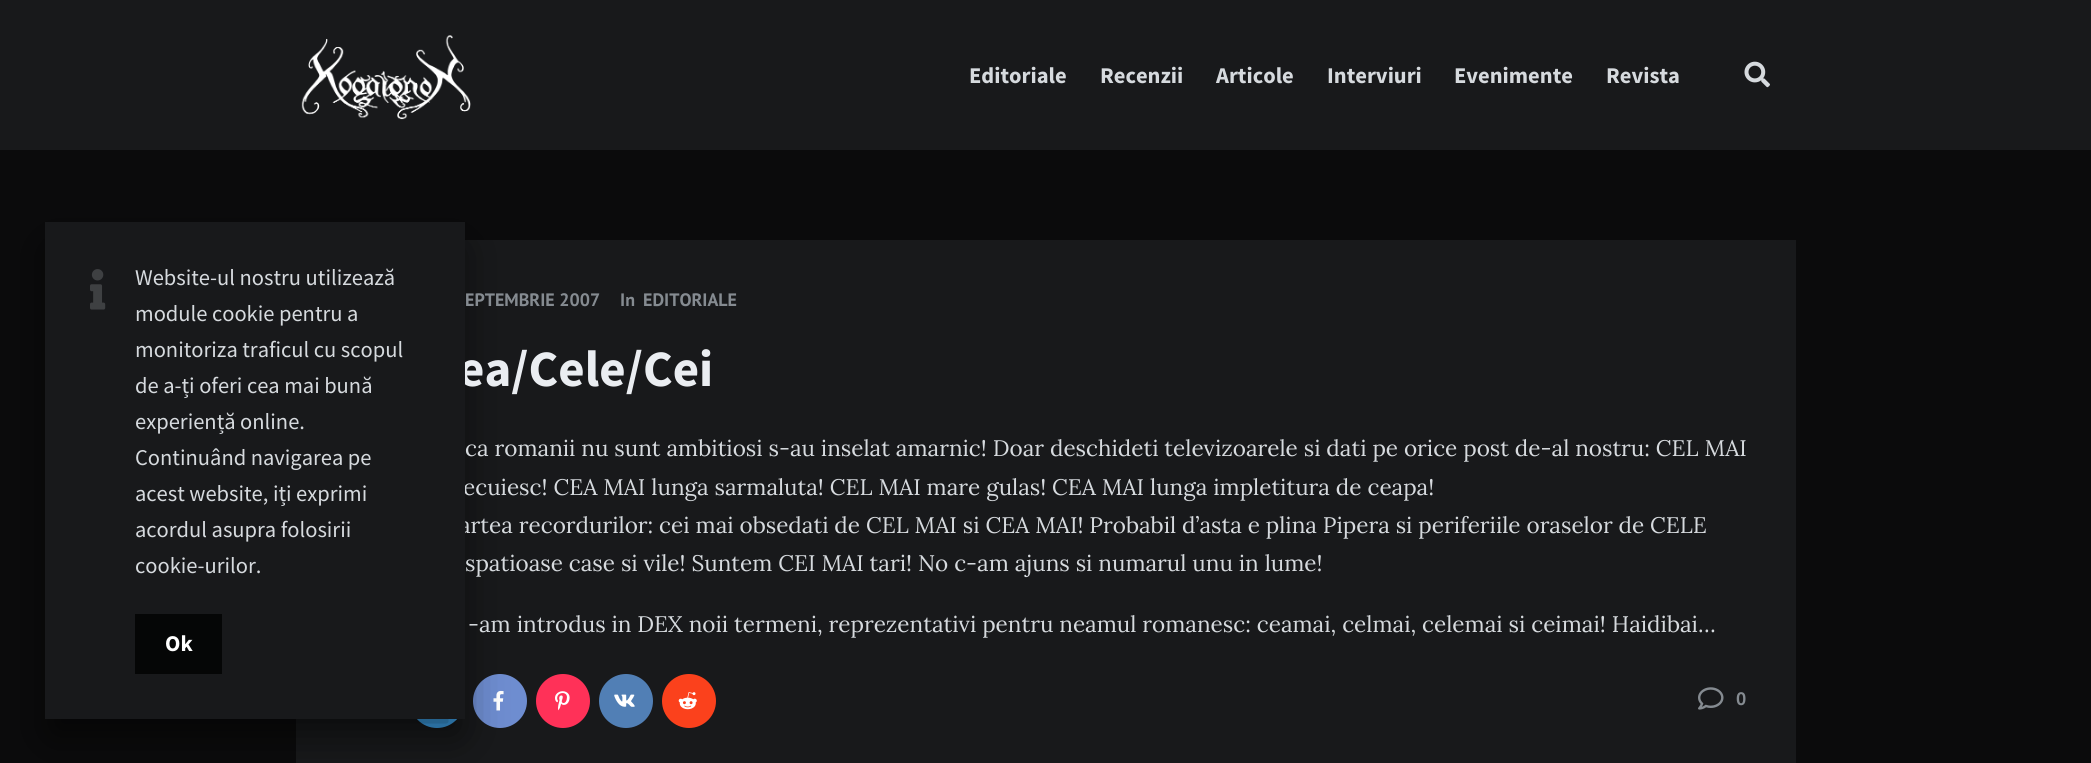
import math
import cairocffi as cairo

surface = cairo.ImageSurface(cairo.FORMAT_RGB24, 2091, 763)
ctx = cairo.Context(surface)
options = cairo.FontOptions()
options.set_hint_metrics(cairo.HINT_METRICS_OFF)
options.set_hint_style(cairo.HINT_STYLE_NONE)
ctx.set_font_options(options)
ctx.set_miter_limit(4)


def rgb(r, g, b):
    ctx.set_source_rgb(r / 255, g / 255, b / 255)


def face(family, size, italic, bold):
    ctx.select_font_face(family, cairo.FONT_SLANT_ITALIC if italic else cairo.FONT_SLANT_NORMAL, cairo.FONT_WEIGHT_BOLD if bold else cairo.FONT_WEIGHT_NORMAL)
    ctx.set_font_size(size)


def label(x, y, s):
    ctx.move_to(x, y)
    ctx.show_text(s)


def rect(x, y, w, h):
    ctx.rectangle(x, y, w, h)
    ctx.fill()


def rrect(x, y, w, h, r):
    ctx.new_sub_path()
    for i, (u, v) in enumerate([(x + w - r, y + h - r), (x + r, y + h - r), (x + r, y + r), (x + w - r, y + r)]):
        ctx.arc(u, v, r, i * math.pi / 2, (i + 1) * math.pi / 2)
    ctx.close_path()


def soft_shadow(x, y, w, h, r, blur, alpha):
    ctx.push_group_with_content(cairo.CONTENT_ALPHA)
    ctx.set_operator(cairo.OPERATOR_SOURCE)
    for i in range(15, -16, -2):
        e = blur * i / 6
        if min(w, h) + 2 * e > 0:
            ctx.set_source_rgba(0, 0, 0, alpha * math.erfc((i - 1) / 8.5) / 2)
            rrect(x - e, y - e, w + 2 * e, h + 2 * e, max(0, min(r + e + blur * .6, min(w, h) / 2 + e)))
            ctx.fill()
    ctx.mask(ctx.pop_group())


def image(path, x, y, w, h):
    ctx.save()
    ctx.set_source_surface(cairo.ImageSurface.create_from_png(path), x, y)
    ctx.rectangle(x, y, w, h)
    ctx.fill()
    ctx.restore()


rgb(11, 11, 12)
ctx.paint()
rgb(24, 25, 27)
rect(0, 0, 2091, 150)
image('image0.png', 301, 35, 170, 85)
face('Source Sans Pro', 22.5, 0, 1)
rgb(214, 218, 222)
label(969, 83, 'Editoriale')
label(1100, 83, 'Recenzii')
label(1216, 83, 'Articole')
label(1327, 83, 'Interviuri')
label(1454, 83, 'Evenimente')
label(1606, 83, 'Revista')
image('image1.png', 1744, 61, 26, 27)
rgb(24, 25, 27)
rect(296, 240, 1500, 523)
rgb(67, 177, 255)
ctx.arc(437, 701, 27, 0, 2 * math.pi)
ctx.fill()
rgb(110, 141, 208)
ctx.arc(500, 701, 27, 0, 2 * math.pi)
ctx.fill()
image('image3.png', 493, 690, 11, 21)
rgb(0, 0, 0)
soft_shadow(51, 249, 408, 485, 0, 21, 0.6)
face('Source Sans Pro', 51, 0, 1)
rgb(234, 237, 241)
label(458, 386, 'ea/Cele/Cei')
face('Lora', 22.5, 0, 0)
rgb(214, 218, 222)
label(463, 495, 'ecuiesc! CEA MAI lunga sarmaluta! CEL MAI mare gulas! CEA MAI lunga impletitura de ceapa!')
label(459, 533, 'artea recordurilor: cei mai obsedati de CEL MAI si CEA MAI! Probabil d’asta e plina Pipera si periferiile oraselor de CELE')
rgb(24, 25, 27)
rect(45, 222, 420, 497)
image('image2.png', 90, 269, 16, 41)
face('Source Sans Pro', 22.5, 0, 0)
rgb(214, 218, 222)
label(135, 285, 'Website-ul nostru utilizează')
label(135, 321, 'module cookie pentru a')
label(135, 357, 'monitoriza traficul cu scopul')
label(135, 393, 'de a-ți oferi cea mai bună')
label(135, 429, 'experiență online.')
label(135, 465, 'Continuând navigarea pe')
label(135, 501, 'acest website, iți exprimi')
label(135, 537, 'acordul asupra folosirii')
label(135, 573, 'cookie-urilor.')
rgb(5, 6, 6)
rect(135, 614, 87, 60)
face('Source Sans Pro', 22.5, 0, 1)
rgb(255, 255, 255)
label(165, 651, 'Ok')
face('PT Sans', 18, 0, 1)
rgb(133, 139, 145)
label(465, 306, 'EPTEMBRIE 2007')
label(620, 306, 'In')
label(643, 306, 'EDITORIALE')
face('Lora', 22.5, 0, 0)
rgb(214, 218, 222)
label(465, 456, 'ca romanii nu sunt ambitiosi s-au inselat amarnic! Doar deschideti televizoarele si dati pe orice post de-al nostru: CEL MAI')
label(465, 571, 'spatioase case si vile! Suntem CEI MAI tari! No c-am ajuns si numarul unu in lume!')
label(468, 632, '-am introdus in DEX noii termeni, reprezentativi pentru neamul romanesc: ceamai, celmai, celemai si ceimai! Haidibai…')
rgb(255, 49, 88)
ctx.new_path()
ctx.arc(563, 701, 27, 0, 2 * math.pi)
ctx.fill()
image('image4.png', 555, 691, 15, 20)
rgb(81, 127, 181)
ctx.arc(626, 701, 27, 0, 2 * math.pi)
ctx.fill()
image('image5.png', 614, 694, 21, 13)
rgb(251, 65, 28)
ctx.arc(689, 701, 27, 0, 2 * math.pi)
ctx.fill()
image('image6.png', 678, 692, 19, 18)
image('image7.png', 1698, 687, 26, 23)
face('PT Sans', 18, 0, 1)
rgb(133, 139, 145)
label(1736, 705, '0')
surface.write_to_png('render.png')
